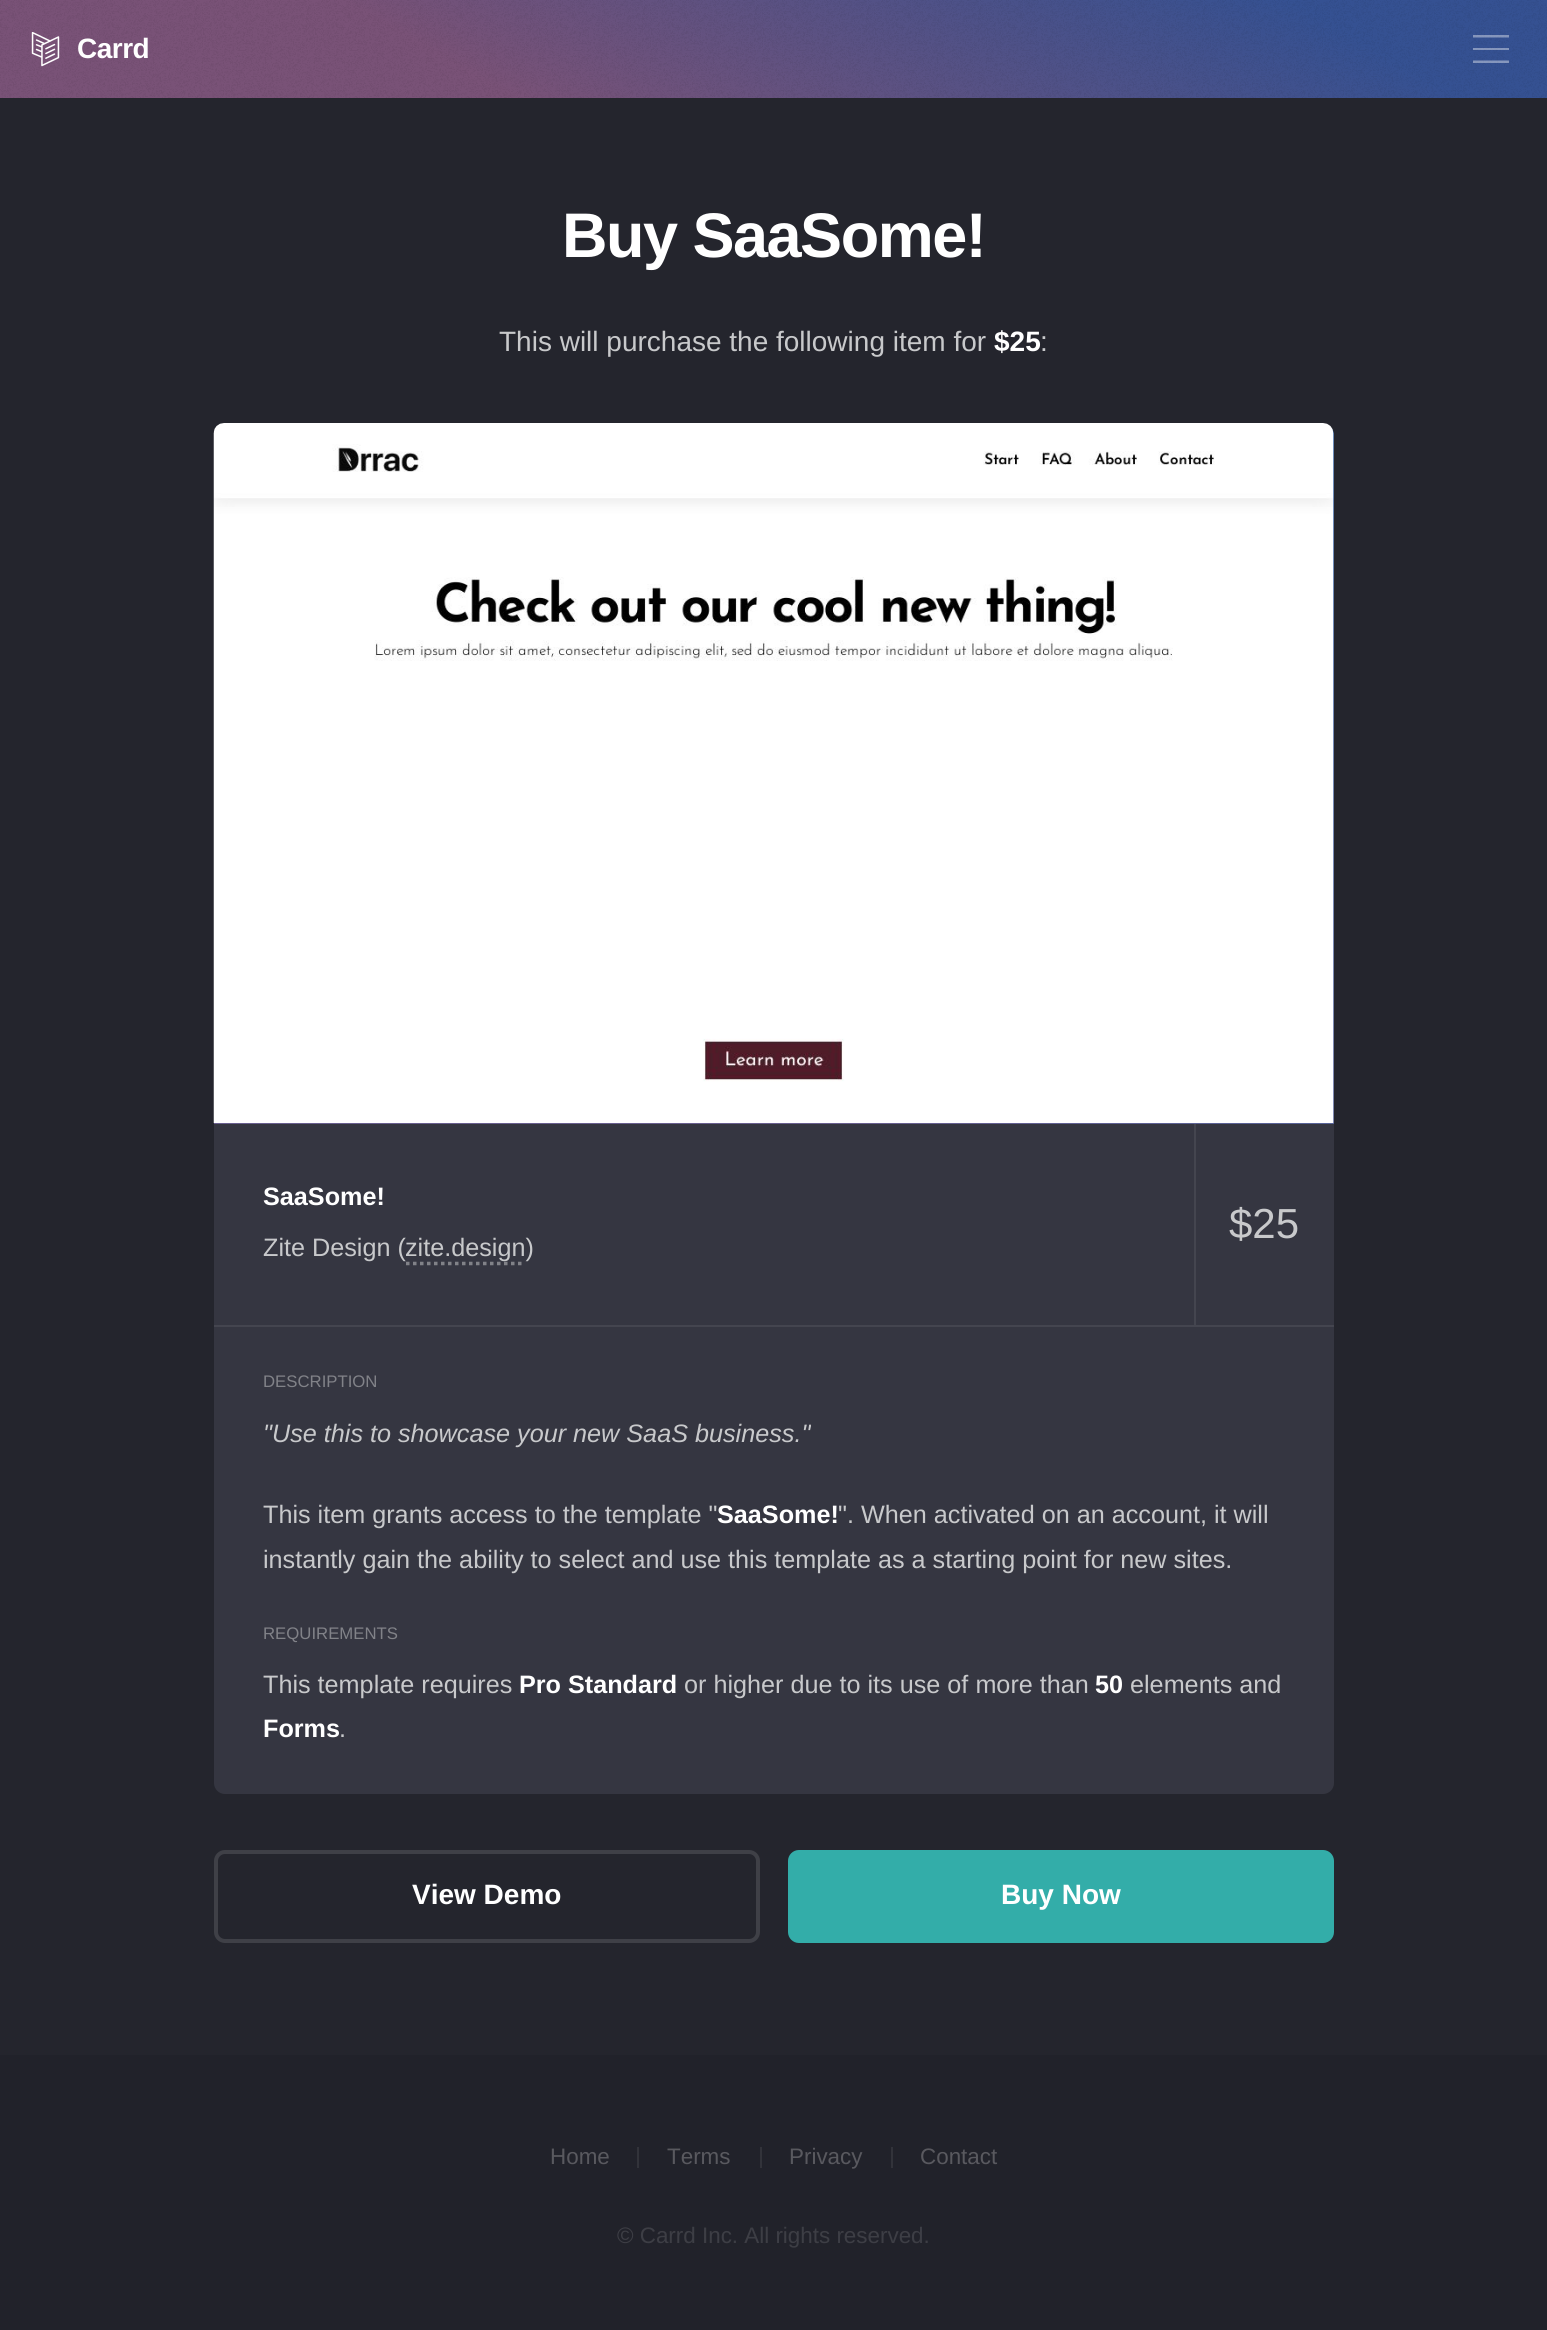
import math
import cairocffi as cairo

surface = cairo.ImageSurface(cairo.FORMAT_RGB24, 1547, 2330)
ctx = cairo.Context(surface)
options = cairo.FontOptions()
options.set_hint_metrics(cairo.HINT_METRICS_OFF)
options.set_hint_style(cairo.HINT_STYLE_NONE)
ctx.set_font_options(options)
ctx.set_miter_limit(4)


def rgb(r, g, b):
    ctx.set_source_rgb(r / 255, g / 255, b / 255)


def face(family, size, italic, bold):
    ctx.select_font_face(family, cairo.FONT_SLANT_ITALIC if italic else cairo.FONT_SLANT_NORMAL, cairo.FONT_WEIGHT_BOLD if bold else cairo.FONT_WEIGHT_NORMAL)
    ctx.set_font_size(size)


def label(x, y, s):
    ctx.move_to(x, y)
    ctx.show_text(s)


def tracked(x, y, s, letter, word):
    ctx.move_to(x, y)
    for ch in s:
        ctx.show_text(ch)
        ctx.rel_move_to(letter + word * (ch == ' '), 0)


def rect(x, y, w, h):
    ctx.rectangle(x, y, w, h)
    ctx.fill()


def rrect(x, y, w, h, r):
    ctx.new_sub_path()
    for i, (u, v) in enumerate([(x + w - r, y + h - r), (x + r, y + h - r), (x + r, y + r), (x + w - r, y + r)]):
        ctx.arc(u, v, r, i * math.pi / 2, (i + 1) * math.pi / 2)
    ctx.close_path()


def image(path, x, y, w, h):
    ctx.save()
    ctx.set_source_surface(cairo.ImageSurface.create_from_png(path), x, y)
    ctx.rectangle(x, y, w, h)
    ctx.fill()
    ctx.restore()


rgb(36, 37, 45)
ctx.paint()
image('image0.png', 0, 0, 1547, 98)
image('image1.png', 31, 32, 29, 35)
face('Liberation Sans', 28, 0, 1)
rgb(255, 255, 255)
tracked(77, 58, 'Carrd', -0.5, 0)
ctx.set_source_rgba(1, 1, 1, 0.4)
ctx.new_path()
ctx.move_to(1473, 48)
ctx.line_to(1509, 48)
ctx.line_to(1509, 50)
ctx.line_to(1473, 50)
ctx.close_path()
ctx.move_to(1473, 35)
ctx.line_to(1473, 37.5)
ctx.line_to(1509, 37.5)
ctx.line_to(1509, 35)
ctx.close_path()
ctx.move_to(1473, 63)
ctx.line_to(1509, 63)
ctx.line_to(1509, 60.5)
ctx.line_to(1473, 60.5)
ctx.close_path()
ctx.fill()
face('Liberation Sans', 63, 0, 1)
rgb(255, 255, 255)
tracked(562, 257, 'Buy SaaSome!', -1.5, 0)
face('Liberation Sans', 28, 0, 0)
rgb(200, 201, 203)
label(499, 351, 'This will purchase the following item for')
face('Liberation Sans', 28, 0, 1)
rgb(255, 255, 255)
label(994, 351, '$25')
face('Liberation Sans', 28, 0, 0)
rgb(200, 201, 203)
label(1040, 351, ':')
rgb(53, 54, 65)
rrect(214, 424, 1120, 1370, 11)
ctx.fill()
gradient = cairo.LinearGradient(319, 1229, 1229, 319)
gradient.add_color_stop_rgba(0.35, 0.412, 0.373, 0.561, 1)
gradient.add_color_stop_rgba(1, 0.239, 0.408, 0.647, 1)
ctx.set_source(gradient)
ctx.new_path()
ctx.move_to(225, 424)
ctx.line_to(1323, 424)
ctx.curve_to(1329, 424, 1334, 429, 1334, 435)
ctx.line_to(1334, 1124)
ctx.line_to(214, 1124)
ctx.line_to(214, 435)
ctx.curve_to(214, 429, 219, 424, 225, 424)
ctx.close_path()
ctx.fill()
image('image2.png', 213, 423, 1121, 700)
face('Liberation Sans', 25.2, 0, 1)
rgb(255, 255, 255)
label(263, 1205, 'SaaSome!')
face('Liberation Sans', 25.2, 0, 0)
rgb(200, 201, 203)
label(263, 1256, 'Zite Design (')
ctx.new_path()
ctx.move_to(406, 1263.5)
ctx.line_to(525, 1263.5)
rgb(129, 130, 136)
ctx.set_line_width(3.5)
ctx.set_dash([3.5, 3.5])
ctx.stroke()
rgb(200, 201, 203)
label(405, 1256, 'zite.design)')
rgb(68, 69, 79)
rect(1194, 1124, 2, 201)
face('Liberation Sans', 42, 0, 0)
rgb(200, 201, 203)
label(1229, 1238, '$25')
rgb(68, 69, 79)
rect(214, 1325, 1120, 2)
face('Liberation Sans', 16.75, 0, 0)
rgb(129, 130, 136)
label(263, 1387, 'DESCRIPTION')
face('Liberation Sans', 25.2, 1, 0)
rgb(200, 201, 203)
label(263, 1442, '"Use this to showcase your new SaaS business."')
face('Liberation Sans', 25.2, 0, 0)
label(263, 1523, 'This item grants access to the template "')
face('Liberation Sans', 25.2, 0, 1)
rgb(255, 255, 255)
label(717, 1523, 'SaaSome!')
face('Liberation Sans', 25.2, 0, 0)
rgb(200, 201, 203)
label(838, 1523, '". When activated on an account, it will')
label(263, 1568, 'instantly gain the ability to select and use this template as a starting point for new sites.')
face('Liberation Sans', 16.75, 0, 0)
rgb(129, 130, 136)
label(263, 1639, 'REQUIREMENTS')
face('Liberation Sans', 25.2, 0, 0)
rgb(200, 201, 203)
label(263, 1693, 'This template requires')
face('Liberation Sans', 25.2, 0, 1)
rgb(255, 255, 255)
label(519, 1693, 'Pro Standard')
face('Liberation Sans', 25.2, 0, 0)
rgb(200, 201, 203)
label(684, 1693, 'or higher due to its use of more than')
face('Liberation Sans', 25.2, 0, 1)
rgb(255, 255, 255)
label(1095, 1693, '50')
face('Liberation Sans', 25.2, 0, 0)
rgb(200, 201, 203)
label(1130, 1693, 'elements and')
face('Liberation Sans', 25.2, 0, 1)
rgb(255, 255, 255)
label(263, 1737, 'Forms')
face('Liberation Sans', 25.2, 0, 0)
rgb(200, 201, 203)
label(339, 1737, '.')
rrect(216, 1852, 542, 89, 9)
rgb(63, 64, 71)
ctx.set_line_width(4)
ctx.set_dash([])
ctx.stroke()
face('Liberation Sans', 28, 0, 1)
rgb(255, 255, 255)
label(412, 1904, 'View Demo')
rgb(51, 173, 169)
rrect(788, 1850, 546, 93, 11)
ctx.fill()
rgb(255, 255, 255)
label(1001, 1904, 'Buy Now')
rgb(33, 34, 42)
rect(0, 2055, 1547, 275)
face('Liberation Sans', 22.4, 0, 0)
rgb(89, 89, 95)
label(550, 2164, 'Home')
rgb(50, 51, 58)
rect(637, 2147, 2, 21)
rgb(89, 89, 95)
label(667, 2164, 'Terms')
rgb(50, 51, 58)
rect(760, 2147, 2, 21)
rgb(89, 89, 95)
label(789, 2164, 'Privacy')
rgb(50, 51, 58)
rect(891, 2147, 2, 21)
rgb(89, 89, 95)
label(920, 2164, 'Contact')
rgb(61, 62, 69)
label(617, 2243, '© Carrd Inc. All rights reserved.')
surface.write_to_png('render.png')
